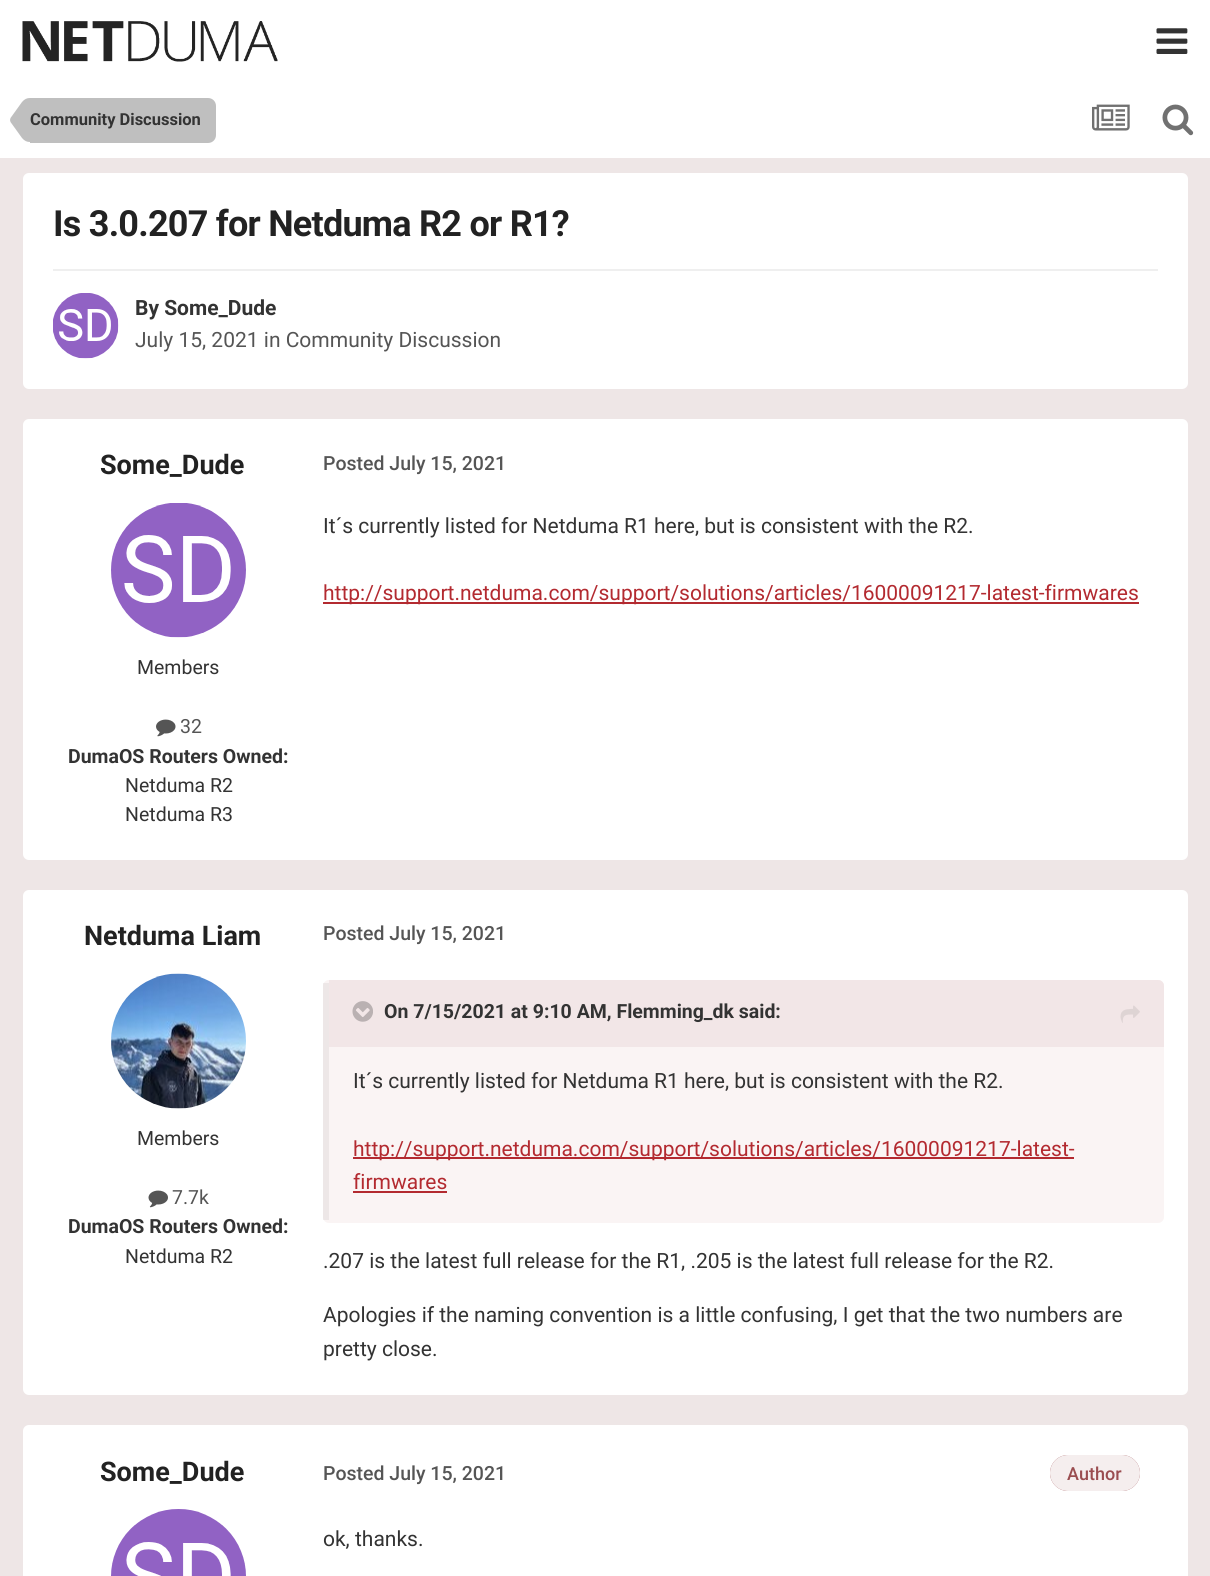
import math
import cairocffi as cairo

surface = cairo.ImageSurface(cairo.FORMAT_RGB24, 1210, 1576)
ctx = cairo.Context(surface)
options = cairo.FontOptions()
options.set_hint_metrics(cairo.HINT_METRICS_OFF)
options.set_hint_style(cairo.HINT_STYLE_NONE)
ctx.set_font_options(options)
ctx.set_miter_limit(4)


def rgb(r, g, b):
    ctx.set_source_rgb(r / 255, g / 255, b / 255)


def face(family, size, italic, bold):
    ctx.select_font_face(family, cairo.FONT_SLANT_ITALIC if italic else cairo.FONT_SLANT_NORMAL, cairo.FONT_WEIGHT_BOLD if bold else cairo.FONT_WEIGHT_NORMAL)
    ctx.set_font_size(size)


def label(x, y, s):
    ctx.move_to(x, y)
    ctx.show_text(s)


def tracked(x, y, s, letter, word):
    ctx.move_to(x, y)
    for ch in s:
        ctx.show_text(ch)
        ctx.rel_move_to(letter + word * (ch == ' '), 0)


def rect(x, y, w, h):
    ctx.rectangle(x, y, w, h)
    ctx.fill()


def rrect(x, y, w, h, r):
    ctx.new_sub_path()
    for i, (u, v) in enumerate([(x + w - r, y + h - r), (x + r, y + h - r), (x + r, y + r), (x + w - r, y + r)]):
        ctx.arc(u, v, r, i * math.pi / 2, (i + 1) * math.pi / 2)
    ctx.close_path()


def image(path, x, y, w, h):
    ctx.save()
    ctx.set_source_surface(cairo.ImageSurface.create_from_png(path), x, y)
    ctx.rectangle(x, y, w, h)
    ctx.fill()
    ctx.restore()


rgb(238, 230, 230)
ctx.paint()
rgb(255, 255, 255)
rect(0, 0, 1210, 158)
image('image0.png', 22, 21, 256, 41)
image('image1.png', 1156, 28, 32, 26)
rgb(191, 191, 191)
ctx.new_path()
ctx.move_to(30, 98)
ctx.line_to(208, 98)
ctx.curve_to(212.5, 98, 216, 101.5, 216, 106)
ctx.line_to(216, 135)
ctx.curve_to(216, 139.5, 212.5, 143, 208, 143)
ctx.line_to(30, 143)
ctx.close_path()
ctx.fill()
ctx.new_path()
ctx.move_to(30, 120)
ctx.line_to(30, 142)
ctx.curve_to(27, 142, 24.5, 141, 22, 138)
ctx.line_to(10.5, 122)
ctx.line_to(10, 120)
ctx.close_path()
ctx.move_to(30, 120)
ctx.line_to(10, 120)
ctx.line_to(10.5, 118)
ctx.line_to(22, 102)
ctx.curve_to(24.5, 99, 27, 98, 30, 98)
ctx.close_path()
ctx.fill()
face('Roboto', 16.5, 0, 1)
rgb(51, 51, 51)
label(30, 125, 'Community Discussion')
image('image2.png', 1092, 104, 38, 27)
image('image3.png', 1162, 104, 32, 32)
rgb(255, 255, 255)
rrect(23, 173, 1165, 216, 6)
ctx.fill()
face('Roboto', 36, 0, 1)
rgb(34, 34, 34)
tracked(53, 236, 'Is 3.0.207 for Netduma R2 or R1?', -0.75, 0)
rgb(239, 239, 239)
rect(53, 269, 1105, 2)
image('image4.png', 53, 293, 66, 66)
face('Roboto', 21, 0, 1)
rgb(51, 51, 51)
label(135, 315, 'By Some_Dude')
face('Roboto', 21, 0, 0)
rgb(85, 85, 85)
label(135, 347, 'July 15, 2021 in Community Discussion')
rgb(255, 255, 255)
rrect(23, 419, 1165, 441, 6)
ctx.fill()
face('Roboto', 27, 0, 1)
rgb(34, 34, 34)
label(100, 474, 'Some_Dude')
image('image5.png', 111, 503, 135, 135)
face('Roboto', 19.5, 0, 0)
rgb(51, 51, 51)
label(137, 674, 'Members')
image('image6.png', 156, 719, 20, 18)
rgb(85, 85, 85)
label(180, 733, '32')
face('Roboto', 19.5, 0, 1)
rgb(51, 51, 51)
label(68, 763, 'DumaOS Routers Owned:')
face('Roboto', 19.5, 0, 0)
label(125, 792, 'Netduma R2')
label(125, 821, 'Netduma R3')
face('Roboto Medium', 19.5, 0, 0)
rgb(85, 85, 85)
label(323, 470, 'Posted July 15, 2021')
face('Roboto', 21, 0, 0)
rgb(51, 51, 51)
label(323, 533, 'It´s currently listed for Netduma R1 here, but is consistent with the R2.')
rgb(179, 42, 48)
rect(323, 602, 816, 2)
label(323, 600, 'http://support.netduma.com/support/solutions/articles/16000091217-latest-firmwares')
rgb(255, 255, 255)
rrect(23, 890, 1165, 505, 6)
ctx.fill()
face('Roboto', 27, 0, 1)
rgb(34, 34, 34)
label(84, 945, 'Netduma Liam')
image('image7.png', 111, 973, 135, 136)
face('Roboto', 19.5, 0, 0)
rgb(51, 51, 51)
label(137, 1145, 'Members')
image('image8.png', 148, 1190, 20, 18)
rgb(85, 85, 85)
label(172, 1204, '7.7k')
face('Roboto', 19.5, 0, 1)
rgb(51, 51, 51)
label(68, 1233, 'DumaOS Routers Owned:')
face('Roboto', 19.5, 0, 0)
label(125, 1263, 'Netduma R2')
face('Roboto Medium', 19.5, 0, 0)
rgb(85, 85, 85)
label(323, 940, 'Posted July 15, 2021')
rgb(250, 244, 244)
rrect(323, 980, 841, 243, 6)
ctx.fill()
ctx.set_source_rgba(0.627, 0.6, 0.6, 0.15)
rect(323, 983, 6, 237)
rgb(242, 230, 231)
ctx.new_path()
ctx.move_to(329, 980)
ctx.line_to(1158, 980)
ctx.curve_to(1161.5, 980, 1164, 982.5, 1164, 986)
ctx.line_to(1164, 1047)
ctx.line_to(329, 1047)
ctx.close_path()
ctx.fill()
image('image9.png', 352, 1001, 21, 21)
face('Roboto', 19.5, 0, 1)
rgb(51, 51, 51)
label(384, 1018, 'On 7/15/2021 at 9:10 AM, Flemming_dk said:')
image('image10.png', 1120, 1005, 20, 18)
face('Roboto', 21, 0, 0)
label(353, 1088, 'It´s currently listed for Netduma R1 here, but is consistent with the R2.')
rgb(179, 42, 48)
rect(353, 1157, 721, 2)
label(353, 1156, 'http://support.netduma.com/support/solutions/articles/16000091217-latest-')
label(353, 1189, 'firmwares')
rect(353, 1191, 94, 2)
rgb(51, 51, 51)
label(323, 1268, '.207 is the latest full release for the R1, .205 is the latest full release for the R2.')
label(323, 1322, 'Apologies if the naming convention is a little confusing, I get that the two numbers are')
label(323, 1356, 'pretty close.')
rgb(255, 255, 255)
rrect(23, 1425, 1165, 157, 6)
ctx.fill()
face('Roboto', 27, 0, 1)
rgb(34, 34, 34)
label(100, 1481, 'Some_Dude')
image('image11.png', 111, 1509, 135, 67)
face('Roboto Medium', 19.5, 0, 0)
rgb(85, 85, 85)
label(323, 1480, 'Posted July 15, 2021')
rgb(154, 77, 80)
rrect(1050, 1455, 90, 36, 18)
ctx.fill()
ctx.set_source_rgba(1, 1, 1, 0.9)
rrect(1050, 1455, 90, 36, 18)
ctx.fill()
face('Roboto Medium', 18, 0, 0)
rgb(154, 77, 80)
label(1067, 1480, 'Author')
face('Roboto', 21, 0, 0)
rgb(51, 51, 51)
label(323, 1546, 'ok, thanks.')
surface.write_to_png('render.png')
